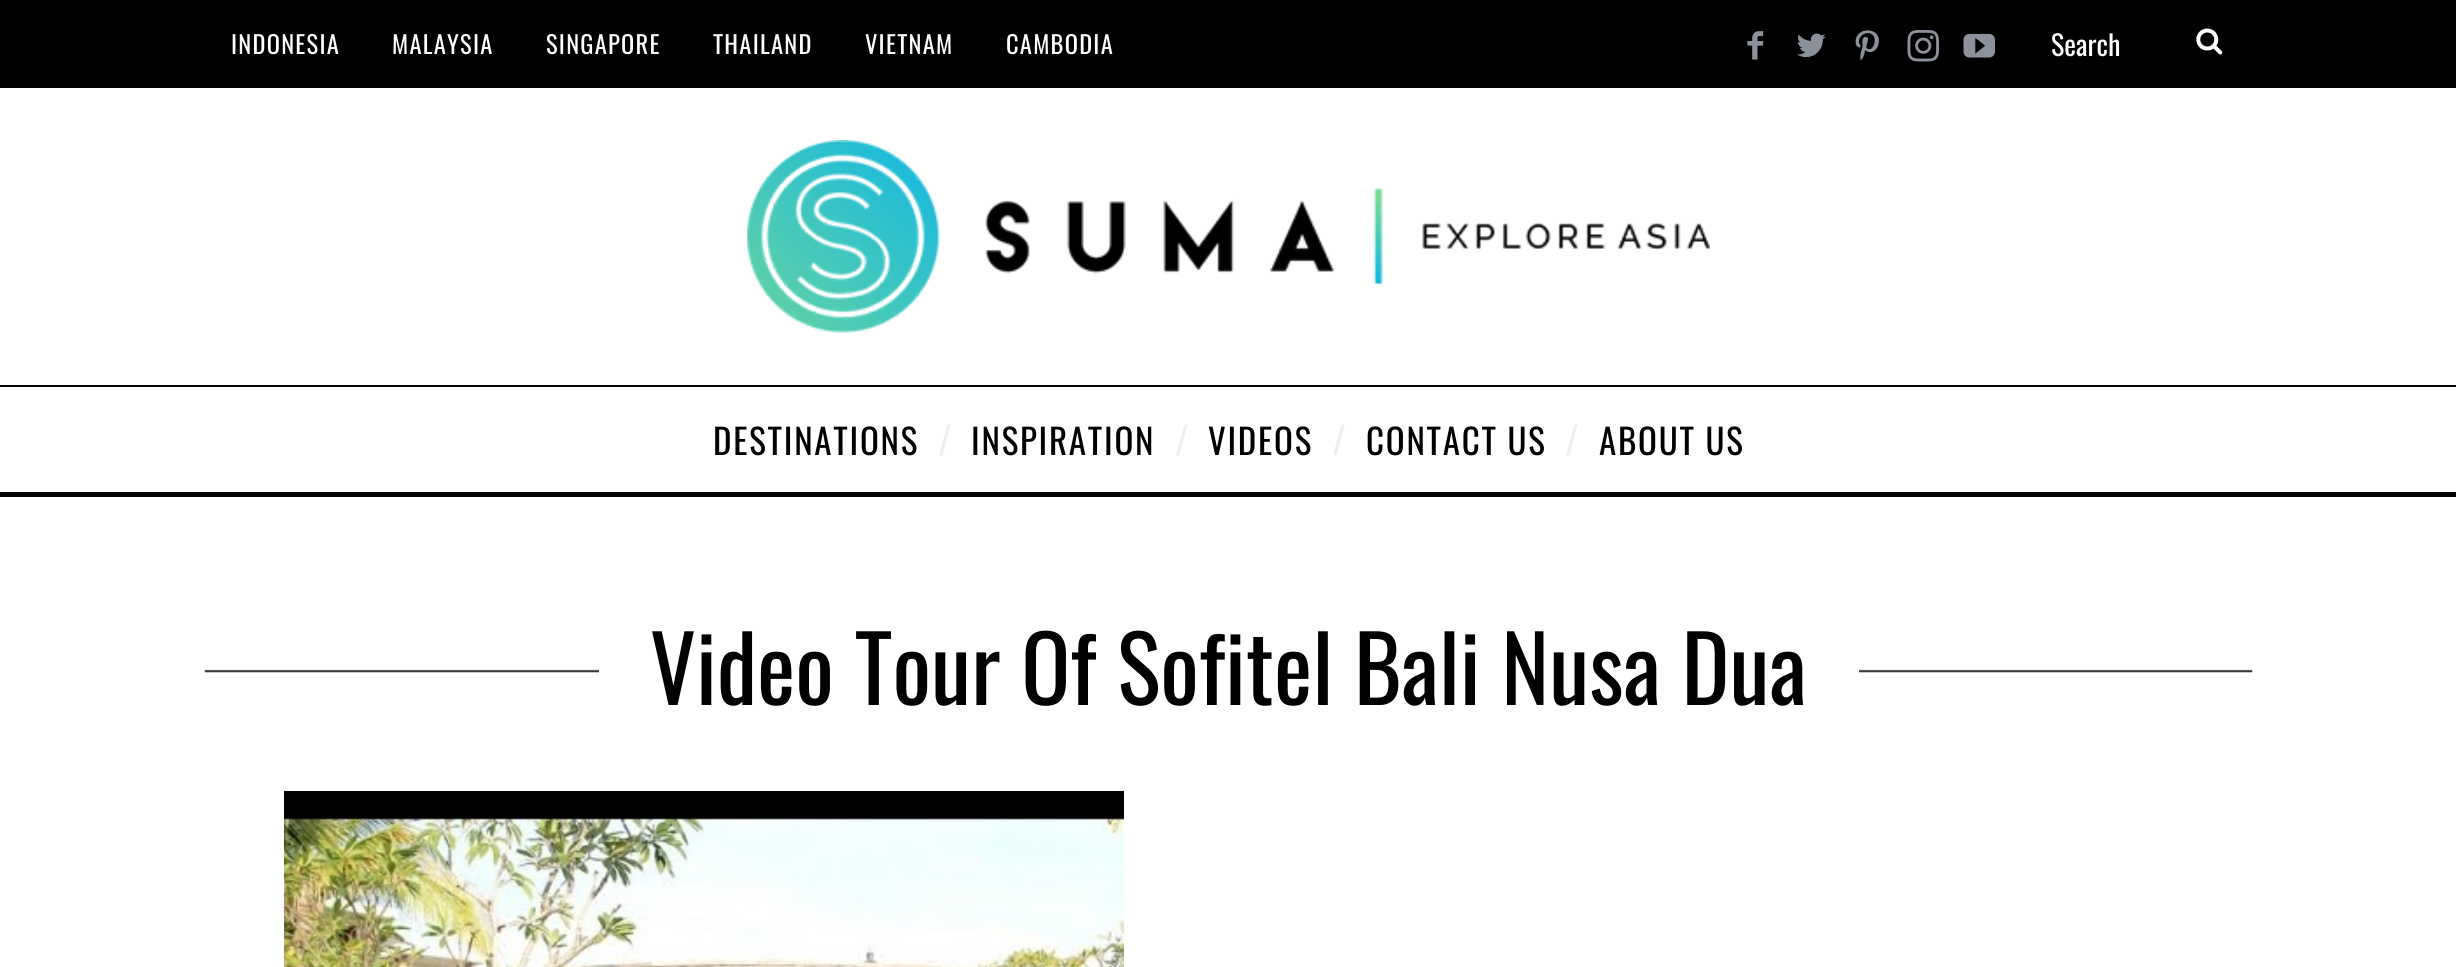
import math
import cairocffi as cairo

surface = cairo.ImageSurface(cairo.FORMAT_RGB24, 2456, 967)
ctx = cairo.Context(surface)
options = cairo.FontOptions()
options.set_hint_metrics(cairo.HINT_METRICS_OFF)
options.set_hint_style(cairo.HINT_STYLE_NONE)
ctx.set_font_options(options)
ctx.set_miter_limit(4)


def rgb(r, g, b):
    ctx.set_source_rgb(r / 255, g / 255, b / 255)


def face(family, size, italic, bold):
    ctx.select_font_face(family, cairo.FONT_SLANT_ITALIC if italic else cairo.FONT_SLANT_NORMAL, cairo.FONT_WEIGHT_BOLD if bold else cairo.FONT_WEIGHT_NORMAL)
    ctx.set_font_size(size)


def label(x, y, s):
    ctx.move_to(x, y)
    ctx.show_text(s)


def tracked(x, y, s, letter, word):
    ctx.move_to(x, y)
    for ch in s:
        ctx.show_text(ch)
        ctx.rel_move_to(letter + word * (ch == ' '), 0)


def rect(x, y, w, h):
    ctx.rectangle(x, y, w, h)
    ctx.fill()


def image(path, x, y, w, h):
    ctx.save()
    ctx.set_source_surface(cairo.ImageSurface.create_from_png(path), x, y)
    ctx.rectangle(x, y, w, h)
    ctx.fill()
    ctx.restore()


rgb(255, 255, 255)
ctx.paint()
rgb(0, 0, 0)
rect(0, 0, 2456, 88)
face('Oswald', 24.5, 0, 0)
rgb(255, 255, 255)
tracked(231, 54, 'INDONESIA', 1.25, 0)
tracked(392, 54, 'MALAYSIA', 1.25, 0)
tracked(546, 54, 'SINGAPORE', 1.25, 0)
tracked(713, 54, 'THAILAND', 1.25, 0)
tracked(865, 54, 'VIETNAM', 1.25, 0)
tracked(1006, 54, 'CAMBODIA', 1.25, 0)
image('image0.png', 1747, 31, 17, 29)
image('image1.png', 1797, 33, 29, 25)
image('image2.png', 1855, 30, 24, 31)
image('image3.png', 1907, 30, 32, 32)
image('image4.png', 1963, 33, 32, 25)
face('Oswald', 28, 0, 0)
label(2051, 56, 'Search')
image('image5.png', 2196, 28, 27, 27)
image('image6.png', 747, 140, 963, 193)
rgb(0, 0, 0)
rect(0, 385, 2456, 2)
rect(0, 492, 2456, 5)
face('Oswald', 35, 0, 0)
tracked(713, 455, 'DESTINATIONS', 1.75, 0)
face('Liberation Sans', 42, 0, 0)
rgb(238, 238, 238)
tracked(939, 455, '/', 1.75, 0)
face('Oswald', 35, 0, 0)
rgb(0, 0, 0)
tracked(971, 455, 'INSPIRATION', 1.75, 0)
face('Liberation Sans', 42, 0, 0)
rgb(238, 238, 238)
tracked(1176, 455, '/', 1.75, 0)
face('Oswald', 35, 0, 0)
rgb(0, 0, 0)
tracked(1208, 455, 'VIDEOS', 1.75, 0)
face('Liberation Sans', 42, 0, 0)
rgb(238, 238, 238)
tracked(1333, 455, '/', 1.75, 0)
face('Oswald', 35, 0, 0)
rgb(0, 0, 0)
tracked(1366, 455, 'CONTACT US', 1.75, 0)
face('Liberation Sans', 42, 0, 0)
rgb(238, 238, 238)
tracked(1566, 455, '/', 1.75, 0)
face('Oswald', 35, 0, 0)
rgb(0, 0, 0)
tracked(1599, 455, 'ABOUT US', 1.75, 0)
image('image7.png', 204, 669, 2049, 4)
rgb(255, 255, 255)
rect(599, 669, 1260, 4)
face('Oswald', 91, 0, 0)
rgb(0, 0, 0)
label(650, 705, 'Video Tour Of Sofitel Bali Nusa Dua')
image('image8.png', 284, 791, 840, 176)
surface.write_to_png('render.png')
